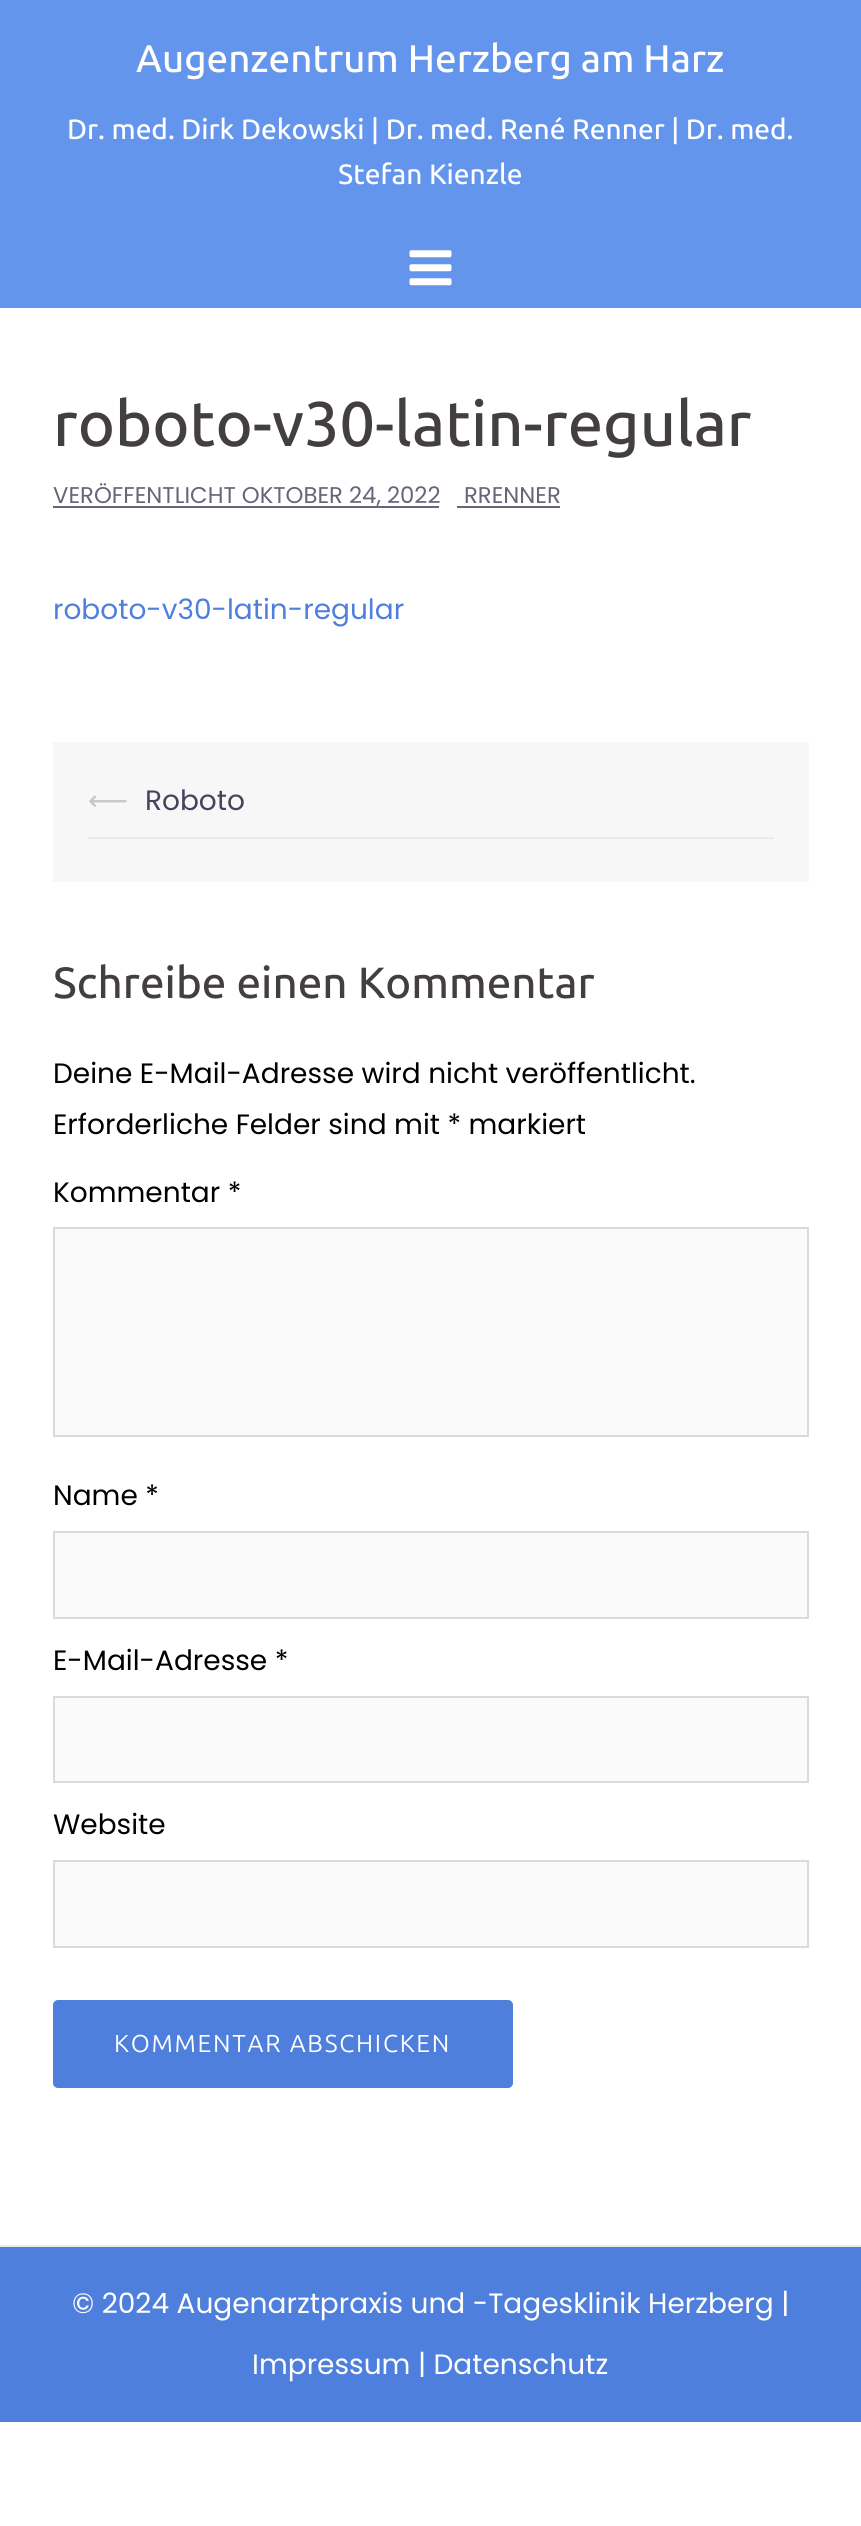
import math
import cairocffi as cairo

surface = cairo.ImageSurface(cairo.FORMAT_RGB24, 861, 2526)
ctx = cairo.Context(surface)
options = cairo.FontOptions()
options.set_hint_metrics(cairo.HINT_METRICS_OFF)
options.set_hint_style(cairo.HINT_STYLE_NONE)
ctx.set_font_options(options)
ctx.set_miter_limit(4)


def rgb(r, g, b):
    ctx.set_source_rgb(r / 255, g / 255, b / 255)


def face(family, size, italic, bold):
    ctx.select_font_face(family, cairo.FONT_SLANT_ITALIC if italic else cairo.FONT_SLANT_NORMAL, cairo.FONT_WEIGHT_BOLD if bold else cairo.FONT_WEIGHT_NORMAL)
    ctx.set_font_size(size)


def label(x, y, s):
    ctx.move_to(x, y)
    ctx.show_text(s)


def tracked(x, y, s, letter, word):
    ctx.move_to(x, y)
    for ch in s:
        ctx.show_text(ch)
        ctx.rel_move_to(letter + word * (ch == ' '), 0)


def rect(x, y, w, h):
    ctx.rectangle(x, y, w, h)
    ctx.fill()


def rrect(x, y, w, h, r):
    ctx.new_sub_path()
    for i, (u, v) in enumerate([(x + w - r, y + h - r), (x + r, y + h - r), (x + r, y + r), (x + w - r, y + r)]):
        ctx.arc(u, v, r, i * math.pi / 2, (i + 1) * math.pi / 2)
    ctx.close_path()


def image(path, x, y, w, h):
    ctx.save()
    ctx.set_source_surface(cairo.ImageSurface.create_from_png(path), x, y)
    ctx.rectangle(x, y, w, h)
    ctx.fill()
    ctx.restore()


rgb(255, 255, 255)
ctx.paint()
rgb(100, 149, 237)
rect(0, 0, 861, 308)
face('Ubuntu Medium', 38.5, 0, 0)
rgb(255, 255, 255)
label(136, 72, 'Augenzentrum Herzberg am Harz')
face('Ubuntu Medium', 28, 0, 0)
label(67, 139, 'Dr. med. Dirk Dekowski | Dr. med. René Renner | Dr. med.')
label(338, 184, 'Stefan Kienzle')
image('image0.png', 409, 250, 43, 36)
face('Ubuntu Medium', 63, 0, 0)
rgb(68, 63, 63)
label(53, 446, 'roboto-v30-latin-regular')
rgb(104, 100, 122)
rect(53, 506, 386, 2)
face('Poppins', 22.75, 0, 0)
label(53, 503, 'VERÖFFENTLICHT OKTOBER 24, 2022')
label(464, 503, 'RRENNER')
rect(457, 506, 103, 2)
face('Poppins', 28, 0, 0)
rgb(79, 127, 221)
label(53, 619, 'roboto-v30-latin-regular')
rgb(247, 247, 247)
rect(53, 742, 756, 140)
rgb(235, 235, 235)
rect(88, 837, 686, 2)
face('DejaVu Sans', 28, 0, 0)
rgb(199, 199, 199)
label(88, 810, '⟵')
face('Poppins', 28, 0, 0)
rgb(71, 66, 93)
label(145, 810, 'Roboto')
face('Ubuntu Medium', 43.75, 0, 0)
rgb(68, 63, 63)
label(53, 998, 'Schreibe einen Kommentar')
face('Poppins', 28, 0, 0)
rgb(0, 0, 0)
label(53, 1083, 'Deine E-Mail-Adresse wird nicht veröffentlicht.')
label(53, 1134, 'Erforderliche Felder sind mit * markiert')
label(53, 1202, 'Kommentar *')
rgb(250, 250, 250)
ctx.rectangle(54, 1228, 754, 208)
ctx.fill_preserve()
rgb(219, 219, 219)
ctx.stroke()
rgb(0, 0, 0)
label(53, 1505, 'Name *')
rgb(250, 250, 250)
ctx.rectangle(54, 1532, 754, 86)
ctx.fill_preserve()
rgb(219, 219, 219)
ctx.stroke()
rgb(0, 0, 0)
label(53, 1670, 'E-Mail-Adresse *')
rgb(250, 250, 250)
ctx.rectangle(54, 1697, 754, 85)
ctx.fill_preserve()
rgb(219, 219, 219)
ctx.stroke()
rgb(0, 0, 0)
label(53, 1834, 'Website')
rgb(250, 250, 250)
ctx.rectangle(54, 1861, 754, 86)
ctx.fill_preserve()
rgb(219, 219, 219)
ctx.stroke()
rgb(79, 127, 221)
rrect(54, 2001, 458, 86, 4)
ctx.fill_preserve()
ctx.stroke()
face('Ubuntu', 24.5, 0, 0)
rgb(255, 255, 255)
tracked(114, 2052, 'KOMMENTAR ABSCHICKEN', 1.75, 0)
rgb(79, 127, 221)
rect(0, 2247, 861, 175)
rgb(235, 235, 235)
rect(0, 2245, 861, 2)
face('Poppins', 28, 0, 0)
rgb(255, 255, 255)
label(72, 2313, '© 2024 Augenarztpraxis und -Tagesklinik Herzberg |')
label(252, 2374, 'Impressum | Datenschutz')
surface.write_to_png('render.png')
